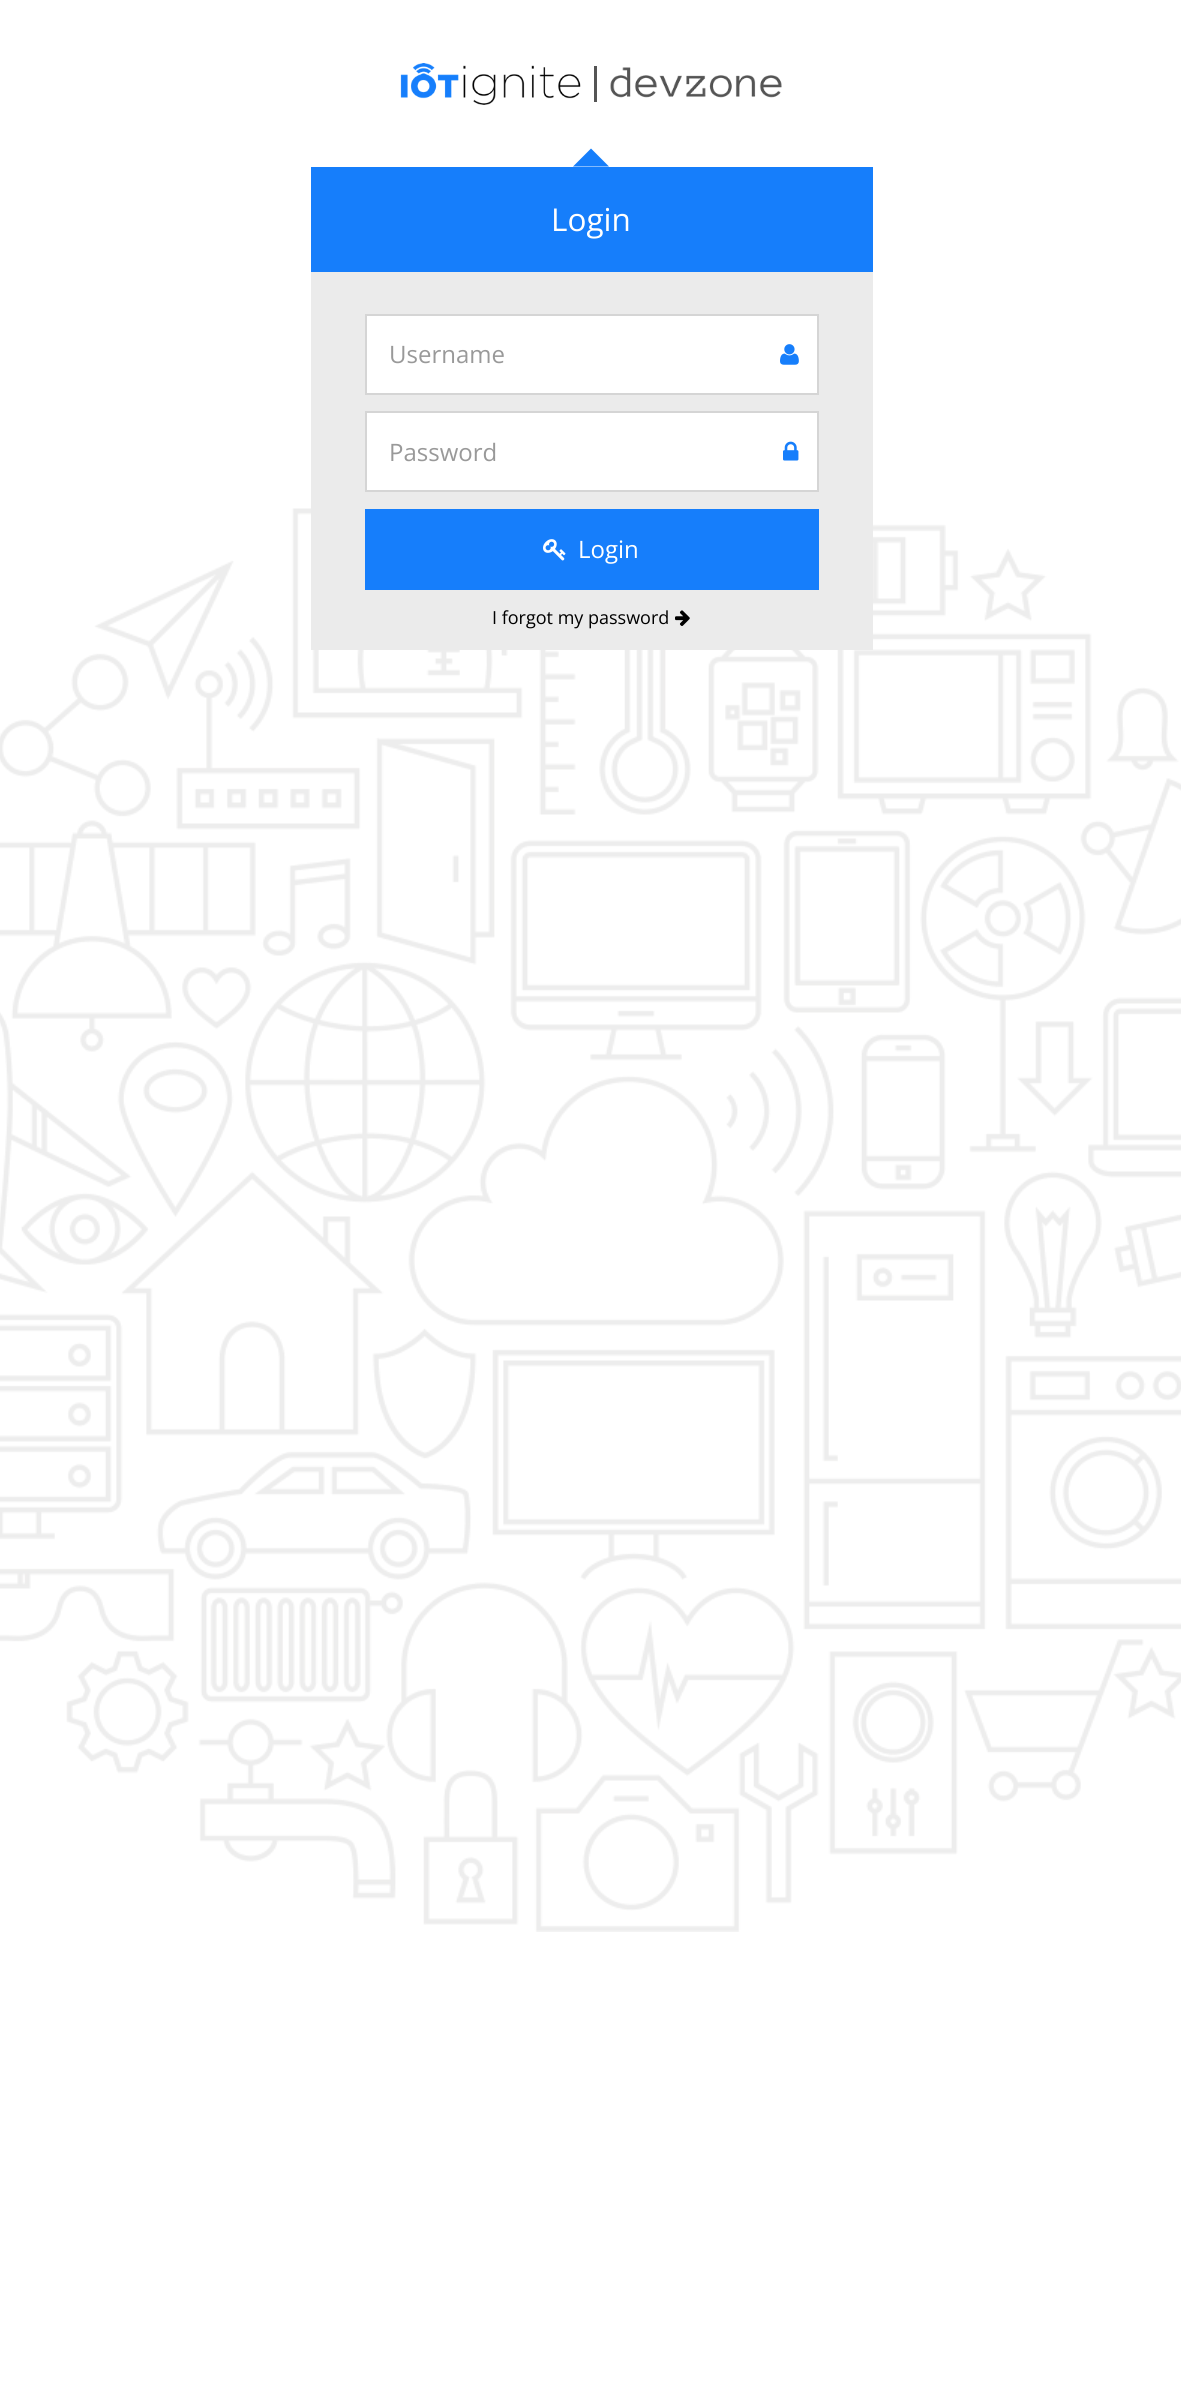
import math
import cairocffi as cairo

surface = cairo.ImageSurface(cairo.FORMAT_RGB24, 1181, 2391)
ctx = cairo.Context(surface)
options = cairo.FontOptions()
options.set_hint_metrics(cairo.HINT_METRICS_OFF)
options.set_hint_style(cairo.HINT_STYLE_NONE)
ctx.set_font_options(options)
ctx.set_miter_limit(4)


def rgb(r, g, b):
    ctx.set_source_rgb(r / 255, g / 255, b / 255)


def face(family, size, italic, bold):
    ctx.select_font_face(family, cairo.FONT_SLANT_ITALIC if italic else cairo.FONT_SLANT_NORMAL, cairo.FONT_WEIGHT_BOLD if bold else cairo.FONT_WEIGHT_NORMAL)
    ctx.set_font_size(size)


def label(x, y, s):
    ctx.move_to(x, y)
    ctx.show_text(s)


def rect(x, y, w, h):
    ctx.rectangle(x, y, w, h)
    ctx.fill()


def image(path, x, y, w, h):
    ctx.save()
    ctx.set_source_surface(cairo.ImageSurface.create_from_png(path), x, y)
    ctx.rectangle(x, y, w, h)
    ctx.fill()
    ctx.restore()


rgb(255, 255, 255)
ctx.paint()
image('image0.png', 0, 508, 1181, 1424)
image('image1.png', 400, 63, 181, 42)
rgb(85, 85, 85)
rect(594, 66, 3, 36)
image('image2.png', 610, 67, 172, 31)
rgb(22, 126, 251)
ctx.new_path()
ctx.move_to(609, 166.5)
ctx.line_to(573, 166.5)
ctx.line_to(591, 148.5)
ctx.close_path()
ctx.fill()
rect(311, 167, 562, 105)
face('Open Sans', 31.5, 0, 0)
rgb(255, 255, 255)
label(551, 231, 'Login')
rgb(235, 235, 235)
rect(311, 272, 562, 378)
rgb(255, 255, 255)
ctx.rectangle(366, 315, 452, 79)
ctx.fill_preserve()
rgb(213, 213, 213)
ctx.stroke()
face('Open Sans', 24, 0, 0)
rgb(153, 153, 153)
label(389, 363, 'Username')
image('image3.png', 780, 344, 19, 21)
rgb(255, 255, 255)
ctx.rectangle(366, 412, 452, 79)
ctx.fill_preserve()
rgb(213, 213, 213)
ctx.stroke()
rgb(153, 153, 153)
label(389, 461, 'Password')
image('image4.png', 783, 441, 16, 20)
rgb(22, 126, 251)
rect(365, 509, 454, 81)
image('image5.png', 543, 539, 23, 22)
rgb(255, 255, 255)
label(578, 558, 'Login')
face('Open Sans', 18, 0, 0)
rgb(0, 0, 0)
label(492, 624, 'I forgot my password')
image('image6.png', 675, 610, 15, 16)
surface.write_to_png('render.png')
